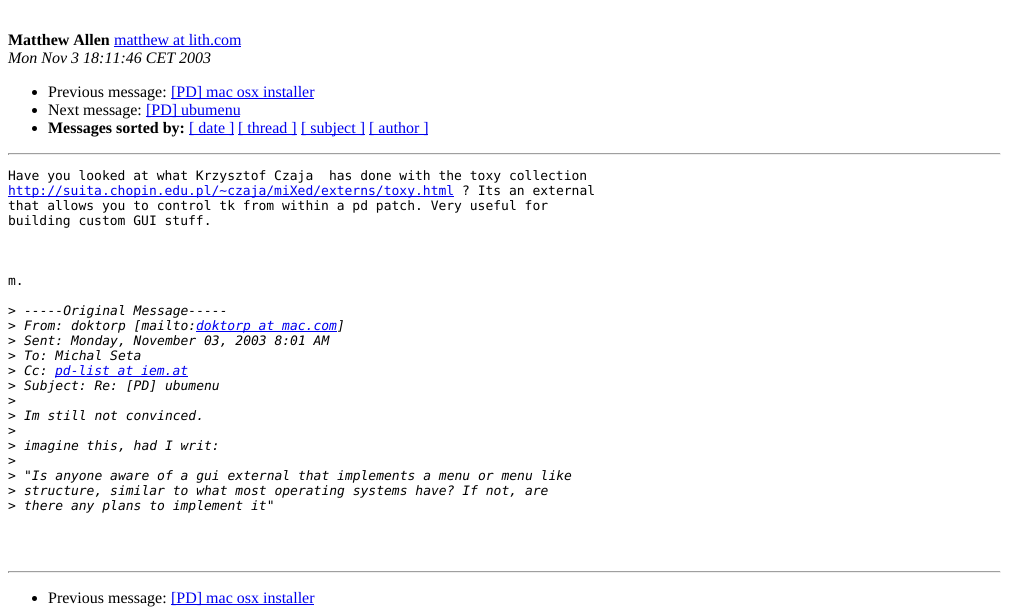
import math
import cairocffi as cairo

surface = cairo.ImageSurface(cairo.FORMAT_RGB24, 1009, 614)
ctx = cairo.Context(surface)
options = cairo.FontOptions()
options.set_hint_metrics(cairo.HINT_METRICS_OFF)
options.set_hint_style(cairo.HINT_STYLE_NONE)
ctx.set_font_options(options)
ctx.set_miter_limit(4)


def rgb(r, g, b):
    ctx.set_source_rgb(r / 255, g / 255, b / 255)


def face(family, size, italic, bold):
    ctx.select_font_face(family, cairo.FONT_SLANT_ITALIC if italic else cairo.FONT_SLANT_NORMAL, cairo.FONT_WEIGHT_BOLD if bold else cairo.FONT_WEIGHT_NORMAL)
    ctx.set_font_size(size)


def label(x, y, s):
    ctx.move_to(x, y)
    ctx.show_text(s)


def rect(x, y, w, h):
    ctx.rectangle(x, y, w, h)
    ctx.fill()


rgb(255, 255, 255)
ctx.paint()
face('Liberation Serif', 16, 0, 1)
rgb(0, 0, 0)
label(8, 45, 'Matthew Allen')
face('Liberation Serif', 16, 0, 0)
rgb(0, 0, 238)
label(114, 45, 'matthew at lith.com')
rect(114, 46, 127, 1)
face('Liberation Serif', 16, 1, 0)
rgb(0, 0, 0)
label(8, 63, 'Mon Nov 3 18:11:46 CET 2003')
ctx.new_path()
ctx.arc(34.5, 92.5, 2.5, 0, 2 * math.pi)
ctx.fill()
face('Liberation Serif', 16, 0, 0)
label(48, 97, 'Previous message:')
rgb(0, 0, 238)
rect(171, 98, 143, 1)
label(171, 97, '[PD] mac osx installer')
rgb(0, 0, 0)
ctx.new_path()
ctx.arc(34.5, 110.5, 2.5, 0, 2 * math.pi)
ctx.fill()
label(48, 115, 'Next message:')
rgb(0, 0, 238)
rect(146, 116, 94, 1)
label(146, 115, '[PD] ubumenu')
rgb(0, 0, 0)
ctx.new_path()
ctx.arc(34.5, 128.5, 2.5, 0, 2 * math.pi)
ctx.fill()
face('Liberation Serif', 16, 0, 1)
label(48, 133, 'Messages sorted by:')
rgb(0, 0, 238)
rect(189, 134, 45, 1)
face('Liberation Serif', 16, 0, 0)
label(189, 133, '[ date ]')
rect(238, 134, 59, 1)
label(238, 133, '[ thread ]')
rect(301, 134, 64, 1)
label(301, 133, '[ subject ]')
rect(369, 134, 59, 1)
label(369, 133, '[ author ]')
rgb(159, 159, 159)
rect(8, 153, 993, 1)
rgb(238, 238, 238)
rect(1000, 153, 1, 2)
rect(8, 154, 993, 1)
rgb(159, 159, 159)
rect(8, 153, 1, 2)
face('DejaVu Sans Mono', 13, 0, 0)
rgb(0, 0, 0)
label(8, 180, 'Have you looked at what Krzysztof Czaja  has done with the toxy collection')
rgb(0, 0, 238)
rect(8, 196, 446, 1)
label(8, 195, 'http://suita.chopin.edu.pl/~czaja/miXed/externs/toxy.html')
rgb(0, 0, 0)
label(462, 195, '? Its an external')
label(8, 210, 'that allows you to control tk from within a pd patch. Very useful for')
label(8, 225, 'building custom GUI stuff.')
label(8, 285, 'm.')
label(8, 315, '>')
face('DejaVu Sans Mono', 13, 1, 0)
label(24, 315, '-----Original Message-----')
face('DejaVu Sans Mono', 13, 0, 0)
label(8, 330, '>')
face('DejaVu Sans Mono', 13, 1, 0)
label(24, 330, 'From: doktorp [mailto:')
rgb(0, 0, 238)
rect(196, 331, 141, 1)
label(196, 330, 'doktorp at mac.com')
rgb(0, 0, 0)
label(337, 330, ']')
face('DejaVu Sans Mono', 13, 0, 0)
label(8, 345, '>')
face('DejaVu Sans Mono', 13, 1, 0)
label(24, 345, 'Sent: Monday, November 03, 2003 8:01 AM')
face('DejaVu Sans Mono', 13, 0, 0)
label(8, 360, '>')
face('DejaVu Sans Mono', 13, 1, 0)
label(24, 360, 'To: Michal Seta')
face('DejaVu Sans Mono', 13, 0, 0)
label(8, 375, '>')
face('DejaVu Sans Mono', 13, 1, 0)
label(24, 375, 'Cc:')
rgb(0, 0, 238)
rect(55, 376, 133, 1)
label(55, 375, 'pd-list at iem.at')
face('DejaVu Sans Mono', 13, 0, 0)
rgb(0, 0, 0)
label(8, 390, '>')
face('DejaVu Sans Mono', 13, 1, 0)
label(24, 390, 'Subject: Re: [PD] ubumenu')
face('DejaVu Sans Mono', 13, 0, 0)
label(8, 405, '>')
label(8, 420, '>')
face('DejaVu Sans Mono', 13, 1, 0)
label(24, 420, 'Im still not convinced.')
face('DejaVu Sans Mono', 13, 0, 0)
label(8, 435, '>')
label(8, 450, '>')
face('DejaVu Sans Mono', 13, 1, 0)
label(24, 450, 'imagine this, had I writ:')
face('DejaVu Sans Mono', 13, 0, 0)
label(8, 465, '>')
label(8, 480, '>')
face('DejaVu Sans Mono', 13, 1, 0)
label(24, 480, '"Is anyone aware of a gui external that implements a menu or menu like')
face('DejaVu Sans Mono', 13, 0, 0)
label(8, 495, '>')
face('DejaVu Sans Mono', 13, 1, 0)
label(24, 495, 'structure, similar to what most operating systems have? If not, are')
face('DejaVu Sans Mono', 13, 0, 0)
label(8, 510, '>')
face('DejaVu Sans Mono', 13, 1, 0)
label(24, 510, 'there any plans to implement it"')
rgb(159, 159, 159)
rect(8, 571, 993, 1)
rgb(238, 238, 238)
rect(1000, 571, 1, 2)
rect(8, 572, 993, 1)
rgb(159, 159, 159)
rect(8, 571, 1, 2)
rgb(0, 0, 0)
ctx.new_path()
ctx.arc(34.5, 598.5, 2.5, 0, 2 * math.pi)
ctx.fill()
face('Liberation Serif', 16, 0, 0)
label(48, 603, 'Previous message:')
rgb(0, 0, 238)
rect(171, 604, 143, 1)
label(171, 603, '[PD] mac osx installer')
surface.write_to_png('render.png')
